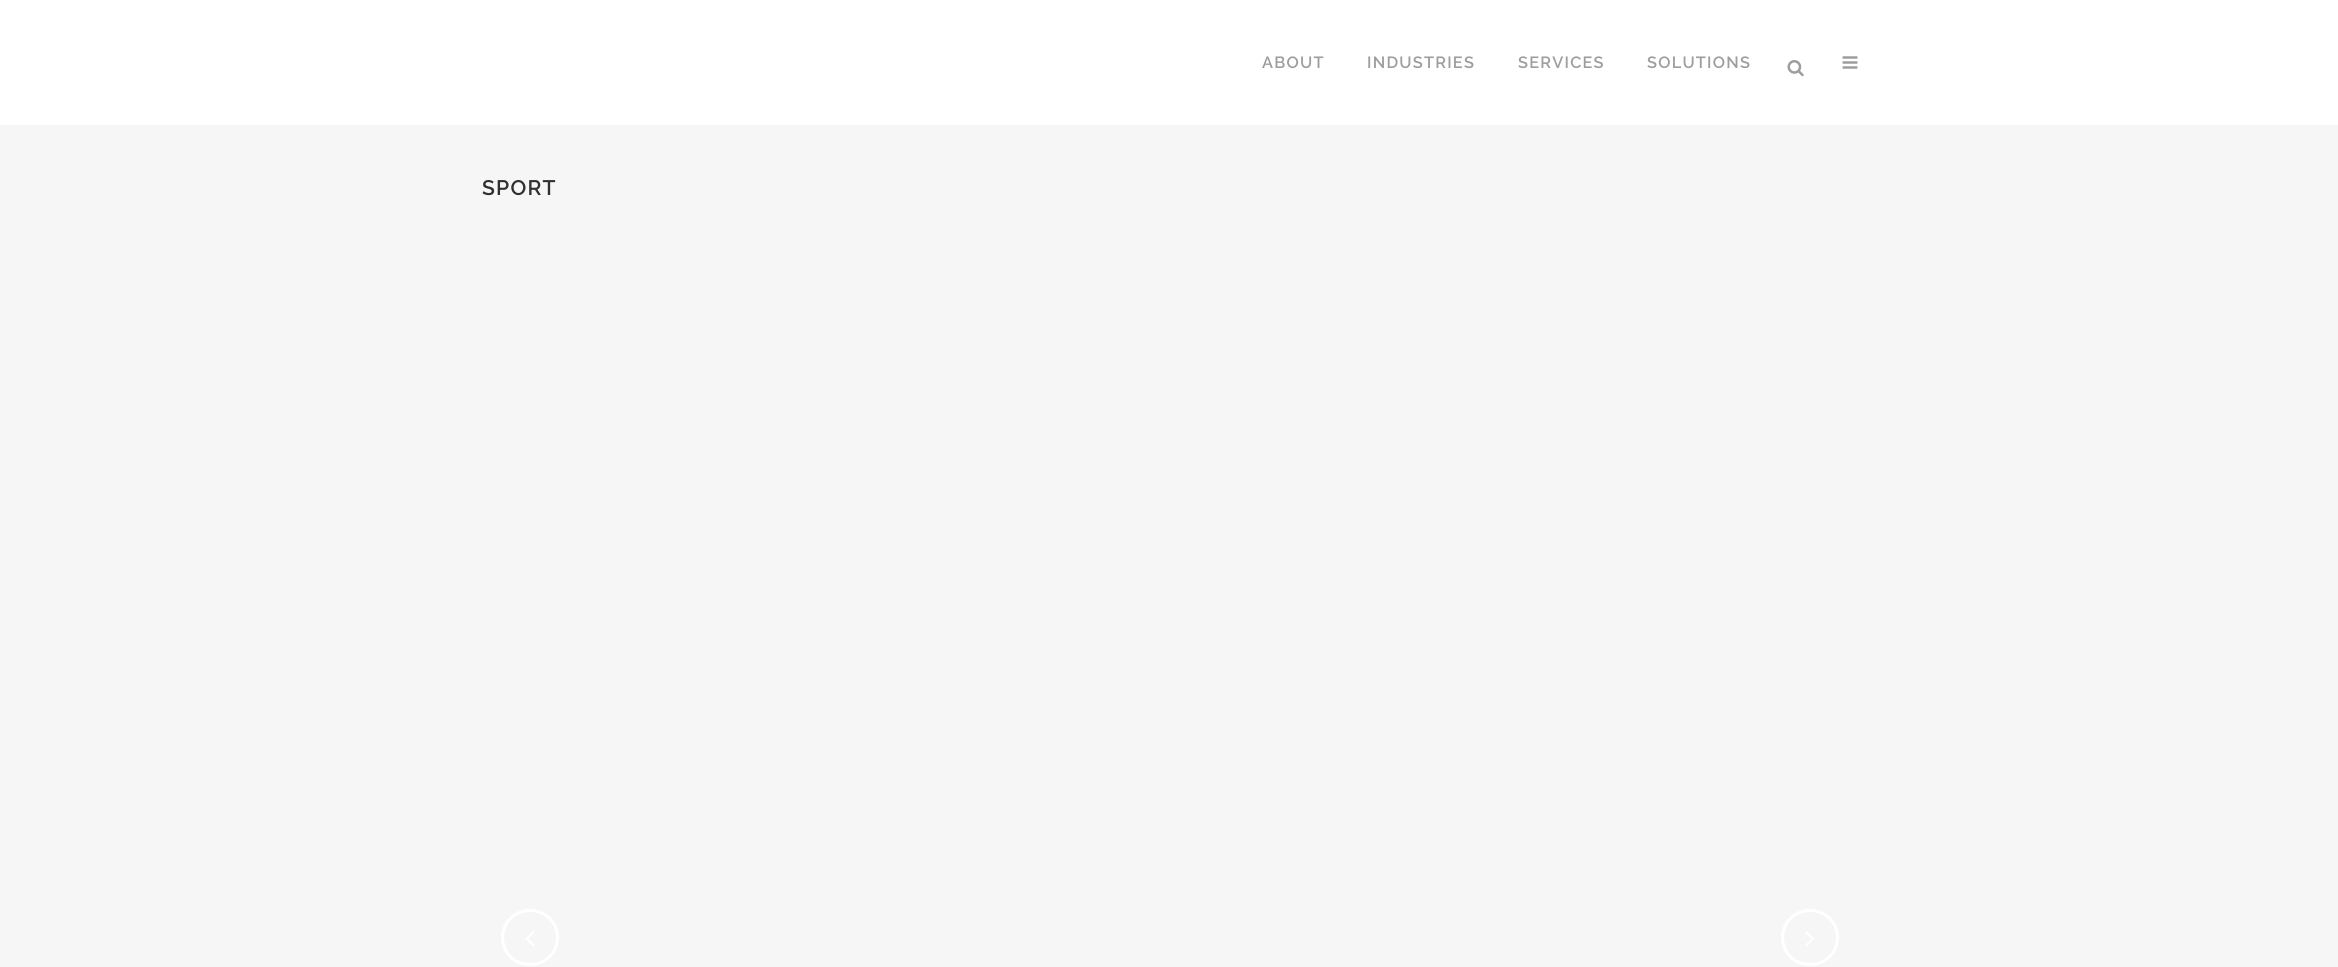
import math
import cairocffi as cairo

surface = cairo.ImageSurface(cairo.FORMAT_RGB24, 2338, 967)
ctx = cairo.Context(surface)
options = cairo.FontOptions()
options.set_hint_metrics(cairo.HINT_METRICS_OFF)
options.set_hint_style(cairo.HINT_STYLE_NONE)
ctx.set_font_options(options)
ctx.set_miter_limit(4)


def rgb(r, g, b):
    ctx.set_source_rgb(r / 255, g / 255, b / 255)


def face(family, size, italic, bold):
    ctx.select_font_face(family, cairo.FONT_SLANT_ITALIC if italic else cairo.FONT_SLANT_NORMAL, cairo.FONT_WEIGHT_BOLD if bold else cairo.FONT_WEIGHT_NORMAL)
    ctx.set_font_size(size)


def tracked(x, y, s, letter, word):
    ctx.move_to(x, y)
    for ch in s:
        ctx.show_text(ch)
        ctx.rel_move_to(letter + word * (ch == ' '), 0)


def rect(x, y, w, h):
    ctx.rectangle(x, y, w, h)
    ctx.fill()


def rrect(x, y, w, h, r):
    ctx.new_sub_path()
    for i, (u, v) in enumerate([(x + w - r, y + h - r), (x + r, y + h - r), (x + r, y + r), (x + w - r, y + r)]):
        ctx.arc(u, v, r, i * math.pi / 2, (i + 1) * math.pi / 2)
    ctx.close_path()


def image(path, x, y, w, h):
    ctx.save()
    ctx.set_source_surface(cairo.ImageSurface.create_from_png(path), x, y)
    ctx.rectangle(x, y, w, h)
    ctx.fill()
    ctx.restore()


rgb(246, 246, 246)
ctx.paint()
rgb(255, 255, 255)
rect(0, 0, 2338, 125)
face('Raleway SemiBold', 16.25, 0, 0)
rgb(157, 157, 157)
tracked(1262, 68, 'ABOUT', 1.25, 0)
tracked(1367, 68, 'INDUSTRIES', 1.25, 0)
tracked(1518, 68, 'SERVICES', 1.25, 0)
tracked(1647, 68, 'SOLUTIONS', 1.25, 0)
image('image0.png', 1787, 60, 17, 17)
image('image1.png', 1842, 56, 16, 13)
face('Raleway SemiBold', 21, 0, 0)
rgb(48, 48, 48)
tracked(482, 195, 'SPORT', 1.25, 0)
rrect(502.5, 910.5, 55, 54, 27)
rgb(255, 255, 255)
ctx.set_line_width(3)
ctx.stroke()
image('image2.png', 526, 931, 9, 15)
rrect(1782.5, 910.5, 55, 54, 27)
ctx.stroke()
image('image3.png', 1805, 931, 9, 15)
surface.write_to_png('render.png')
